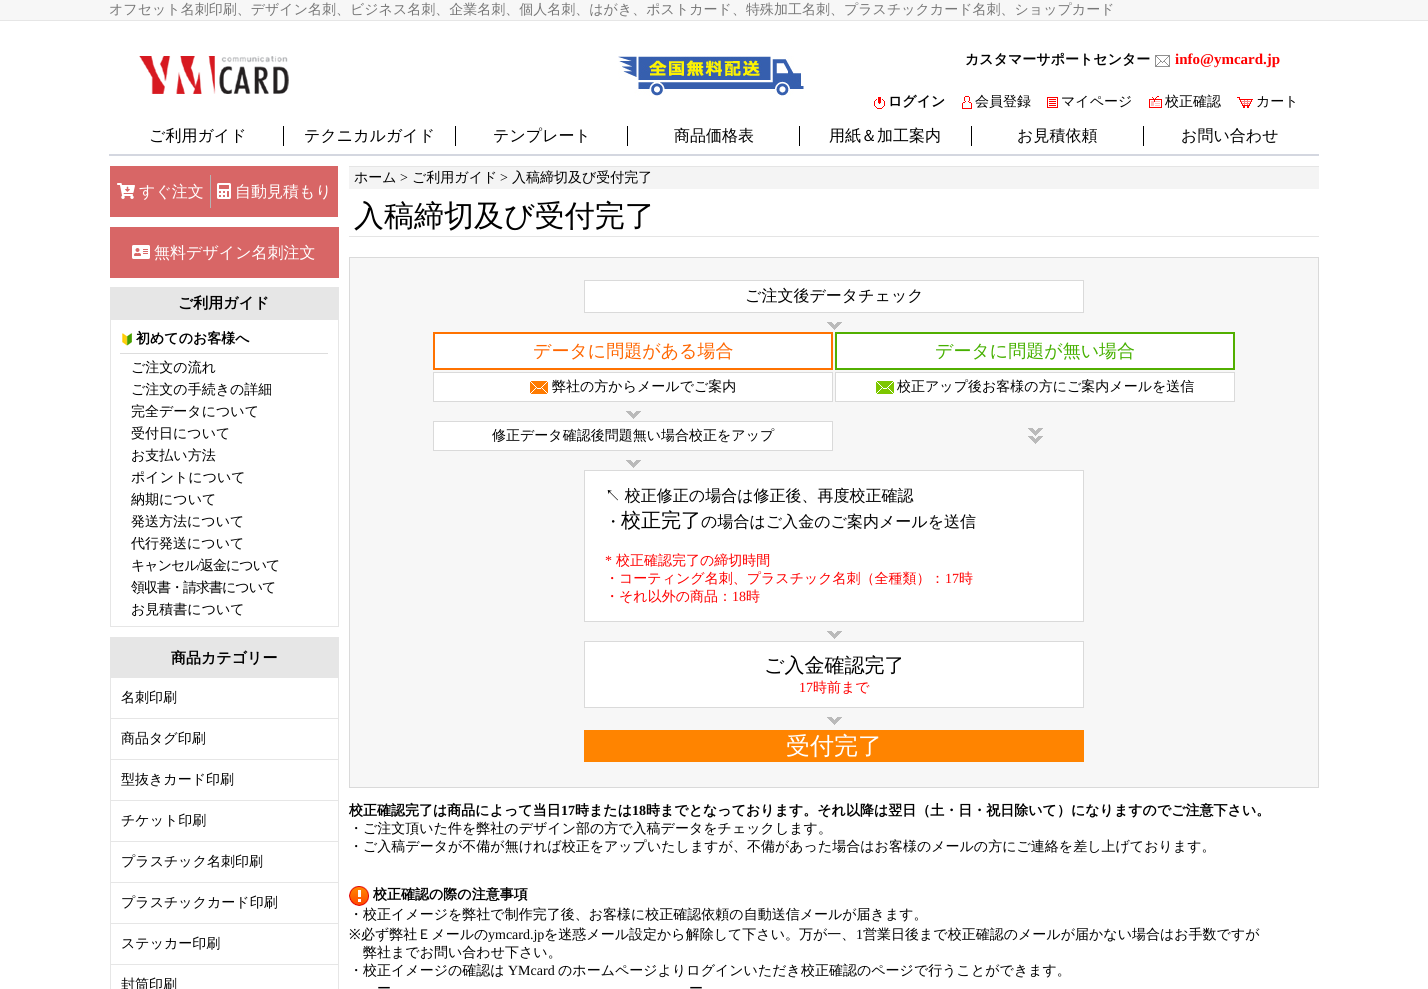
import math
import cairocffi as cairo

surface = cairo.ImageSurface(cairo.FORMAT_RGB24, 1428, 989)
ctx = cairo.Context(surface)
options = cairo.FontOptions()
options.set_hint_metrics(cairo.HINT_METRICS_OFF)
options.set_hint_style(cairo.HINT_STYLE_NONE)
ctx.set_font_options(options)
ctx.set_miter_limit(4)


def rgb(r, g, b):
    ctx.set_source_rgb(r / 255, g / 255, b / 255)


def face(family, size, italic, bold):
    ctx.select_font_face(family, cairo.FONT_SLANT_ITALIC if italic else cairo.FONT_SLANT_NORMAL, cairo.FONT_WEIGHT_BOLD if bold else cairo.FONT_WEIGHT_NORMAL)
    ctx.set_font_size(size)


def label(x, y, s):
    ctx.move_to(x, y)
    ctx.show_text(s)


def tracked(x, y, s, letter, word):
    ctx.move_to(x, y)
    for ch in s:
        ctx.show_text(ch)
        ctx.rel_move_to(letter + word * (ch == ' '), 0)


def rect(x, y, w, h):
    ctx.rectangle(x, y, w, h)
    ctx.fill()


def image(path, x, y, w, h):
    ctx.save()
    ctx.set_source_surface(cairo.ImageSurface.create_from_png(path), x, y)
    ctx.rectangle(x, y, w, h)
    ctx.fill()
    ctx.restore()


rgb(255, 255, 255)
ctx.paint()
rgb(247, 247, 247)
rect(0, 0, 1428, 20)
face('WenQuanYi Zen Hei Medium', 14, 0, 0)
rgb(119, 119, 119)
label(109, 14, 'オフセット名刺印刷、デザイン名刺、ビジネス名刺、企業名刺、個人名刺、はがき、ポストカード、特殊加工名刺、プラスチックカード名刺、ショップカード')
rgb(230, 230, 230)
rect(0, 20, 1428, 1)
image('image0.png', 139, 56, 150, 38)
image('image1.png', 618, 56, 186, 40)
face('WenQuanYi Zen Hei', 14, 0, 1)
rgb(0, 0, 0)
label(965, 64, 'カスタマーサポートセンター')
image('image2.png', 1155, 55, 15, 12)
face('Liberation Serif', 15, 0, 1)
rgb(255, 0, 0)
label(1175, 64, 'info@ymcard.jp')
image('image3.png', 874, 97, 11, 12)
face('WenQuanYi Zen Hei', 14, 0, 1)
rgb(0, 0, 0)
label(888, 106, 'ログイン')
image('image4.png', 962, 96, 10, 13)
face('WenQuanYi Zen Hei Medium', 14, 0, 0)
label(975, 106, '会員登録')
image('image5.png', 1047, 97, 11, 11)
label(1061, 106, 'マイページ')
image('image6.png', 1149, 96, 13, 12)
label(1165, 106, '校正確認')
image('image7.png', 1237, 97, 16, 11)
label(1256, 106, 'カート')
rgb(212, 215, 224)
rect(109, 154, 1210, 2)
rgb(0, 0, 0)
rect(283, 126, 1, 20)
face('WenQuanYi Zen Hei Medium', 16, 0, 0)
label(149, 141, 'ご利用ガイド')
rect(455, 126, 1, 20)
label(304, 141, 'テクニカルガイド')
rect(627, 126, 1, 20)
label(493, 141, 'テンプレート')
rect(799, 126, 1, 20)
label(674, 141, '商品価格表')
rect(971, 126, 1, 20)
label(829, 141, '用紙＆加工案内')
rect(1143, 126, 1, 20)
label(1017, 141, 'お見積依頼')
label(1181, 141, 'お問い合わせ')
rgb(216, 102, 102)
rect(110, 166, 228, 51)
image('image8.png', 117, 183, 18, 16)
rgb(255, 255, 255)
label(139, 197, 'すぐ注文')
rgb(180, 180, 180)
rect(210, 175, 1, 33)
image('image9.png', 217, 183, 14, 16)
rgb(255, 255, 255)
label(235, 197, '自動見積もり')
rgb(216, 102, 102)
rect(110, 227, 229, 51)
image('image10.png', 132, 245, 18, 14)
rgb(255, 255, 255)
label(154, 258, '無料デザイン名刺注文')
rgb(230, 230, 230)
rect(110, 287, 229, 33)
face('WenQuanYi Zen Hei', 15, 0, 1)
rgb(0, 0, 0)
label(178, 308, 'ご利用ガイド')
rgb(230, 230, 230)
rect(338, 319, 1, 308)
rect(110, 626, 229, 1)
rect(110, 319, 1, 308)
rgb(221, 221, 221)
rect(120, 353, 208, 1)
image('image11.png', 122, 333, 10, 13)
face('WenQuanYi Zen Hei', 14, 0, 1)
rgb(0, 0, 0)
label(136, 343, '初めてのお客様へ')
face('WenQuanYi Zen Hei Medium', 14, 0, 0)
label(131, 372, 'ご注文の流れ')
label(131, 394, 'ご注文の手続きの詳細')
label(131, 416, '完全データについて')
label(131, 438, '受付日について')
label(131, 460, 'お支払い方法')
label(131, 482, 'ポイントについて')
label(131, 504, '納期について')
label(131, 526, '発送方法について')
label(131, 548, '代行発送について')
tracked(131, 570, 'キャンセル', -1, 0)
face('Liberation Serif', 14, 0, 0)
tracked(197, 570, '/', -1, 0)
face('WenQuanYi Zen Hei Medium', 14, 0, 0)
tracked(200, 570, '返金について', -1, 0)
tracked(131, 592, '領収書・請求書について', -1, 0)
label(131, 614, 'お見積書について')
ctx.rectangle(110.5, 637.5, 228, 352)
rgb(230, 230, 230)
ctx.set_line_width(1)
ctx.stroke()
rect(111, 638, 227, 40)
face('WenQuanYi Zen Hei', 15, 0, 1)
rgb(0, 0, 0)
label(171, 663, '商品カテゴリー')
rgb(230, 230, 230)
rect(111, 718, 227, 1)
face('WenQuanYi Zen Hei Medium', 14, 0, 0)
rgb(0, 0, 0)
label(121, 702, '名刺印刷')
rgb(230, 230, 230)
rect(111, 759, 227, 1)
rgb(0, 0, 0)
label(121, 743, '商品タグ印刷')
rgb(230, 230, 230)
rect(111, 800, 227, 1)
rgb(0, 0, 0)
label(121, 784, '型抜きカード印刷')
rgb(230, 230, 230)
rect(111, 841, 227, 1)
rgb(0, 0, 0)
label(121, 825, 'チケット印刷')
rgb(230, 230, 230)
rect(111, 882, 227, 1)
rgb(0, 0, 0)
label(121, 866, 'プラスチック名刺印刷')
rgb(230, 230, 230)
rect(111, 923, 227, 1)
rgb(0, 0, 0)
label(121, 907, 'プラスチックカード印刷')
rgb(230, 230, 230)
rect(111, 964, 227, 1)
rgb(0, 0, 0)
label(121, 948, 'ステッカー印刷')
label(121, 989, '封筒印刷')
rgb(229, 229, 229)
rect(349, 166, 970, 1)
rgb(244, 244, 244)
rect(349, 167, 970, 22)
rgb(0, 0, 0)
label(354, 182, 'ホーム')
face('Liberation Serif', 14, 0, 0)
label(400, 182, '>')
face('WenQuanYi Zen Hei Medium', 14, 0, 0)
label(412, 182, 'ご利用ガイド')
face('Liberation Serif', 14, 0, 0)
label(500, 182, '>')
face('WenQuanYi Zen Hei Medium', 14, 0, 0)
label(512, 182, '入稿締切及び受付完了')
face('WenQuanYi Zen Hei Medium', 30, 0, 0)
label(354, 226, '入稿締切及び受付完了')
rgb(229, 229, 229)
rect(349, 236, 970, 1)
rgb(247, 247, 247)
ctx.rectangle(349.5, 257.5, 969, 530)
ctx.fill_preserve()
rgb(218, 218, 218)
ctx.stroke()
rgb(255, 255, 255)
ctx.rectangle(584.5, 280.5, 499, 32)
ctx.fill_preserve()
rgb(218, 218, 218)
ctx.stroke()
face('WenQuanYi Zen Hei Medium', 16, 0, 0)
rgb(0, 0, 0)
label(745, 301, 'ご注文後データチェック')
image('image12.png', 827, 322, 15, 8)
rgb(255, 255, 255)
ctx.rectangle(434, 333, 398, 36)
ctx.fill_preserve()
rgb(255, 114, 0)
ctx.set_line_width(2)
ctx.stroke()
face('WenQuanYi Zen Hei Medium', 18, 0, 0)
rgb(255, 102, 0)
label(533, 357, 'データに問題がある場合')
rgb(255, 255, 255)
ctx.rectangle(836, 333, 398, 36)
ctx.fill_preserve()
rgb(82, 175, 0)
ctx.stroke()
rgb(70, 176, 0)
label(935, 357, 'データに問題が無い場合')
rgb(255, 255, 255)
ctx.rectangle(433.5, 372.5, 399, 29)
ctx.fill_preserve()
rgb(218, 218, 218)
ctx.set_line_width(1)
ctx.stroke()
image('image13.png', 530, 381, 18, 13)
face('WenQuanYi Zen Hei Medium', 14, 0, 0)
rgb(0, 0, 0)
label(552, 391, '弊社の方からメールでご案内')
rgb(255, 255, 255)
ctx.rectangle(835.5, 372.5, 399, 29)
ctx.fill_preserve()
rgb(218, 218, 218)
ctx.stroke()
image('image14.png', 876, 381, 18, 13)
rgb(0, 0, 0)
label(897, 391, '校正アップ後お客様の方にご案内メールを送信')
image('image12.png', 626, 411, 15, 8)
rgb(255, 255, 255)
ctx.rectangle(433.5, 421.5, 399, 29)
ctx.fill_preserve()
rgb(218, 218, 218)
ctx.stroke()
rgb(0, 0, 0)
label(492, 440, '修正データ確認後問題無い場合校正をアップ')
image('image12.png', 1028, 428, 15, 8)
image('image12.png', 1028, 436, 15, 8)
image('image12.png', 626, 460, 15, 8)
rgb(255, 255, 255)
ctx.rectangle(584.5, 470.5, 499, 151)
ctx.fill_preserve()
rgb(218, 218, 218)
ctx.stroke()
face('WenQuanYi Zen Hei Medium', 16, 0, 0)
rgb(0, 0, 0)
tracked(605, 501, '↖ 校正修正の場合は修正後、再度校正確認', 0, -1)
label(605, 527, '・')
face('WenQuanYi Zen Hei Medium', 20, 0, 0)
label(621, 527, '校正完了')
face('WenQuanYi Zen Hei Medium', 16, 0, 0)
label(701, 527, 'の場合はご入金のご案内メールを送信')
face('Liberation Serif', 14, 0, 0)
rgb(255, 0, 0)
label(605, 565, '*')
face('WenQuanYi Zen Hei Medium', 14, 0, 0)
label(616, 565, '校正確認完了の締切時間')
label(605, 583, '・コーティング名刺、プラスチック名刺（全種類）：')
face('Liberation Serif', 14, 0, 0)
label(945, 583, '17')
face('WenQuanYi Zen Hei Medium', 14, 0, 0)
label(959, 583, '時')
label(605, 601, '・それ以外の商品：')
face('Liberation Serif', 14, 0, 0)
label(732, 601, '18')
face('WenQuanYi Zen Hei Medium', 14, 0, 0)
label(746, 601, '時')
image('image12.png', 827, 631, 15, 8)
rgb(255, 255, 255)
ctx.rectangle(584.5, 641.5, 499, 66)
ctx.fill_preserve()
rgb(218, 218, 218)
ctx.stroke()
face('WenQuanYi Zen Hei Medium', 20, 0, 0)
rgb(0, 0, 0)
label(764, 672, 'ご入金確認完了')
face('Liberation Serif', 14, 0, 0)
rgb(255, 0, 0)
label(799, 692, '17')
face('WenQuanYi Zen Hei Medium', 14, 0, 0)
label(813, 692, '時前まで')
image('image12.png', 827, 717, 15, 8)
rgb(255, 132, 0)
rect(584, 730, 500, 32)
face('WenQuanYi Zen Hei Medium', 24, 0, 0)
rgb(255, 255, 255)
label(786, 754, '受付完了')
face('WenQuanYi Zen Hei', 14, 0, 1)
rgb(0, 0, 0)
label(349, 815, '校正確認完了は商品によって当日')
face('Liberation Serif', 14, 0, 1)
label(561, 815, '17')
face('WenQuanYi Zen Hei', 14, 0, 1)
label(575, 815, '時または')
face('Liberation Serif', 14, 0, 1)
label(632, 815, '18')
face('WenQuanYi Zen Hei', 14, 0, 1)
label(646, 815, '時までとなっております。それ以降は翌日（土・日・祝日除いて）になりますのでご注意下さい。')
face('WenQuanYi Zen Hei Medium', 14, 0, 0)
label(349, 833, '・ご注文頂いた件を弊社のデザイン部の方で入稿データをチェックします。')
label(349, 851, '・ご入稿データが不備が無ければ校正をアップいたしますが、不備があった場合はお客様のメールの方にご連絡を差し上げております。')
image('image15.png', 349, 886, 20, 20)
face('WenQuanYi Zen Hei', 14, 0, 1)
label(373, 899, '校正確認の際の注意事項')
face('WenQuanYi Zen Hei Medium', 14, 0, 0)
label(349, 919, '・校正イメージを弊社で制作完了後、お客様に校正確認依頼の自動送信メールが届きます。')
face('Noto Sans', 14, 0, 0)
label(349, 939, '※')
face('WenQuanYi Zen Hei Medium', 14, 0, 0)
label(361, 939, '必ず弊社Ｅメールの')
face('Liberation Serif', 14, 0, 0)
label(488, 939, 'ymcard.jp')
face('WenQuanYi Zen Hei Medium', 14, 0, 0)
label(544, 939, 'を迷惑メール設定から解除して下さい。万が一、')
face('Liberation Serif', 14, 0, 0)
label(856, 939, '1')
face('WenQuanYi Zen Hei Medium', 14, 0, 0)
label(863, 939, '営業日後まで校正確認のメールが届かない場合はお手数ですが')
label(363, 957, '弊社までお問い合わせ下さい。')
label(349, 975, '・校正イメージの確認は')
face('Liberation Serif', 14, 0, 0)
label(508, 975, 'YMcard')
face('WenQuanYi Zen Hei Medium', 14, 0, 0)
label(558, 975, 'のホームページよりログインいただき校正確認のページで行うことができます。')
label(377, 993, 'ー')
label(689, 993, 'ー')
surface.write_to_png('render.png')
